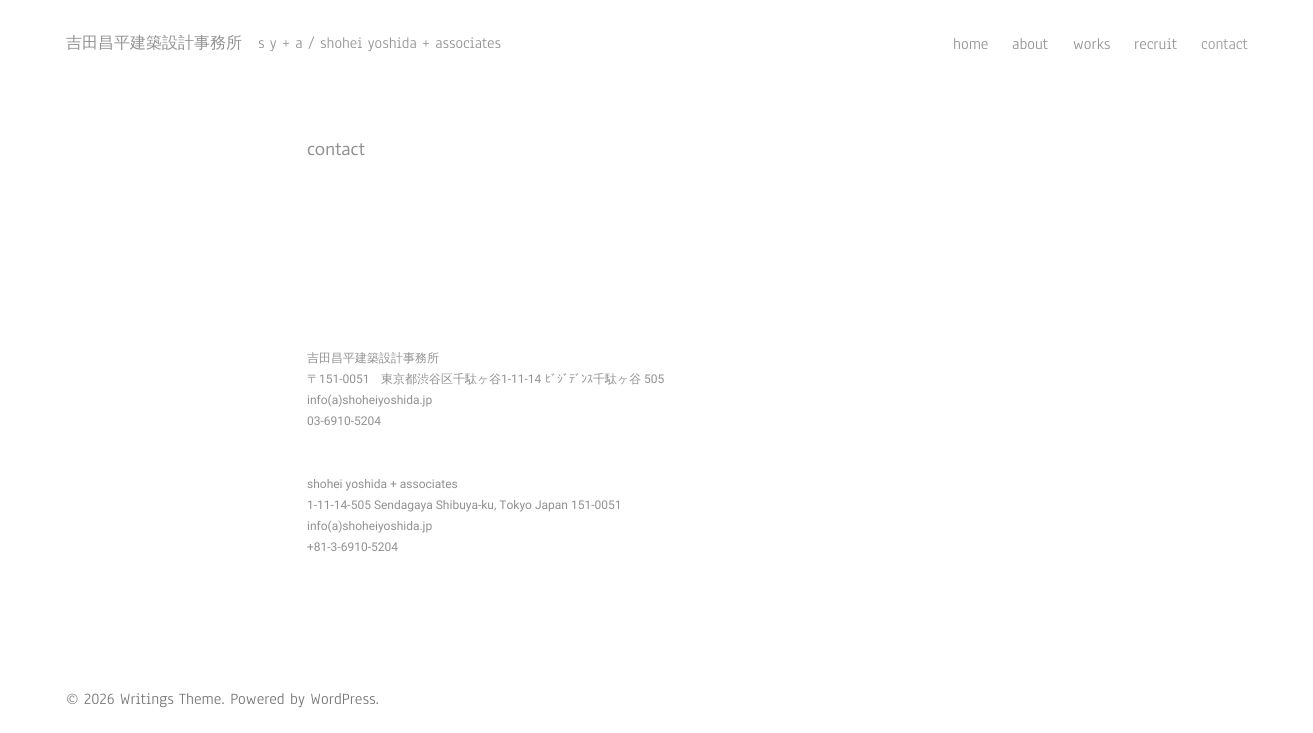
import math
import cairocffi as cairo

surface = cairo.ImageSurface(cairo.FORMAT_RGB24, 1313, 733)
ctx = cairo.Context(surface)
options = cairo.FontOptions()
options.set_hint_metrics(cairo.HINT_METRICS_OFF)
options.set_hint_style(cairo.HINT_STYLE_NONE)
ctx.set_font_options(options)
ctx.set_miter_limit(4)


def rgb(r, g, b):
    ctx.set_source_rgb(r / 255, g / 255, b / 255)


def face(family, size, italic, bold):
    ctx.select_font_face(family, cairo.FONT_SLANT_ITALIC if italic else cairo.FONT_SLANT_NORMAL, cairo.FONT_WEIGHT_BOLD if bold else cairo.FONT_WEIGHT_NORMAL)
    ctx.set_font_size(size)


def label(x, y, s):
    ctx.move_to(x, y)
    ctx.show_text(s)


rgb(255, 255, 255)
ctx.paint()
face('WenQuanYi Zen Hei Medium', 16, 0, 0)
rgb(145, 145, 145)
label(66, 48, '吉田昌平建築設計事務所')
face('Anaheim', 16, 0, 0)
label(258, 48, 's y + a / shohei yoshida + associates')
face('Anaheim', 16.25, 0, 0)
label(953, 49, 'home')
label(1012, 49, 'about')
label(1073, 49, 'works')
label(1134, 49, 'recruit')
rgb(153, 153, 153)
label(1201, 49, 'contact')
face('Actor', 18, 0, 0)
rgb(145, 145, 145)
label(307, 155, 'contact')
face('WenQuanYi Zen Hei Medium', 12, 0, 0)
label(307, 362, '吉田昌平建築設計事務所')
label(307, 383, '〒')
face('Roboto', 12, 0, 0)
label(319, 383, '151-0051')
face('WenQuanYi Zen Hei Medium', 12, 0, 0)
label(381, 383, '東京都渋谷区千駄ヶ谷')
face('Roboto', 12, 0, 0)
label(501, 383, '1-11-14')
face('IPAPGothic', 12, 0, 0)
label(545, 383, 'ﾋﾞｼﾞﾃﾞﾝｽ')
face('WenQuanYi Zen Hei Medium', 12, 0, 0)
label(593, 383, '千駄ヶ谷')
face('Roboto', 12, 0, 0)
label(644, 383, '505')
label(307, 404, 'info(a)shoheiyoshida.jp')
label(307, 425, '03-6910-5204')
label(307, 488, 'shohei yoshida + associates')
label(307, 509, '1-11-14-505 Sendagaya Shibuya-ku, Tokyo Japan 151-0051')
label(307, 530, 'info(a)shoheiyoshida.jp')
label(307, 551, '+81-3-6910-5204')
face('Anaheim', 16.25, 0, 0)
rgb(115, 115, 115)
label(66, 704, '© 2026 Writings Theme. Powered by WordPress.')
surface.write_to_png('render.png')
